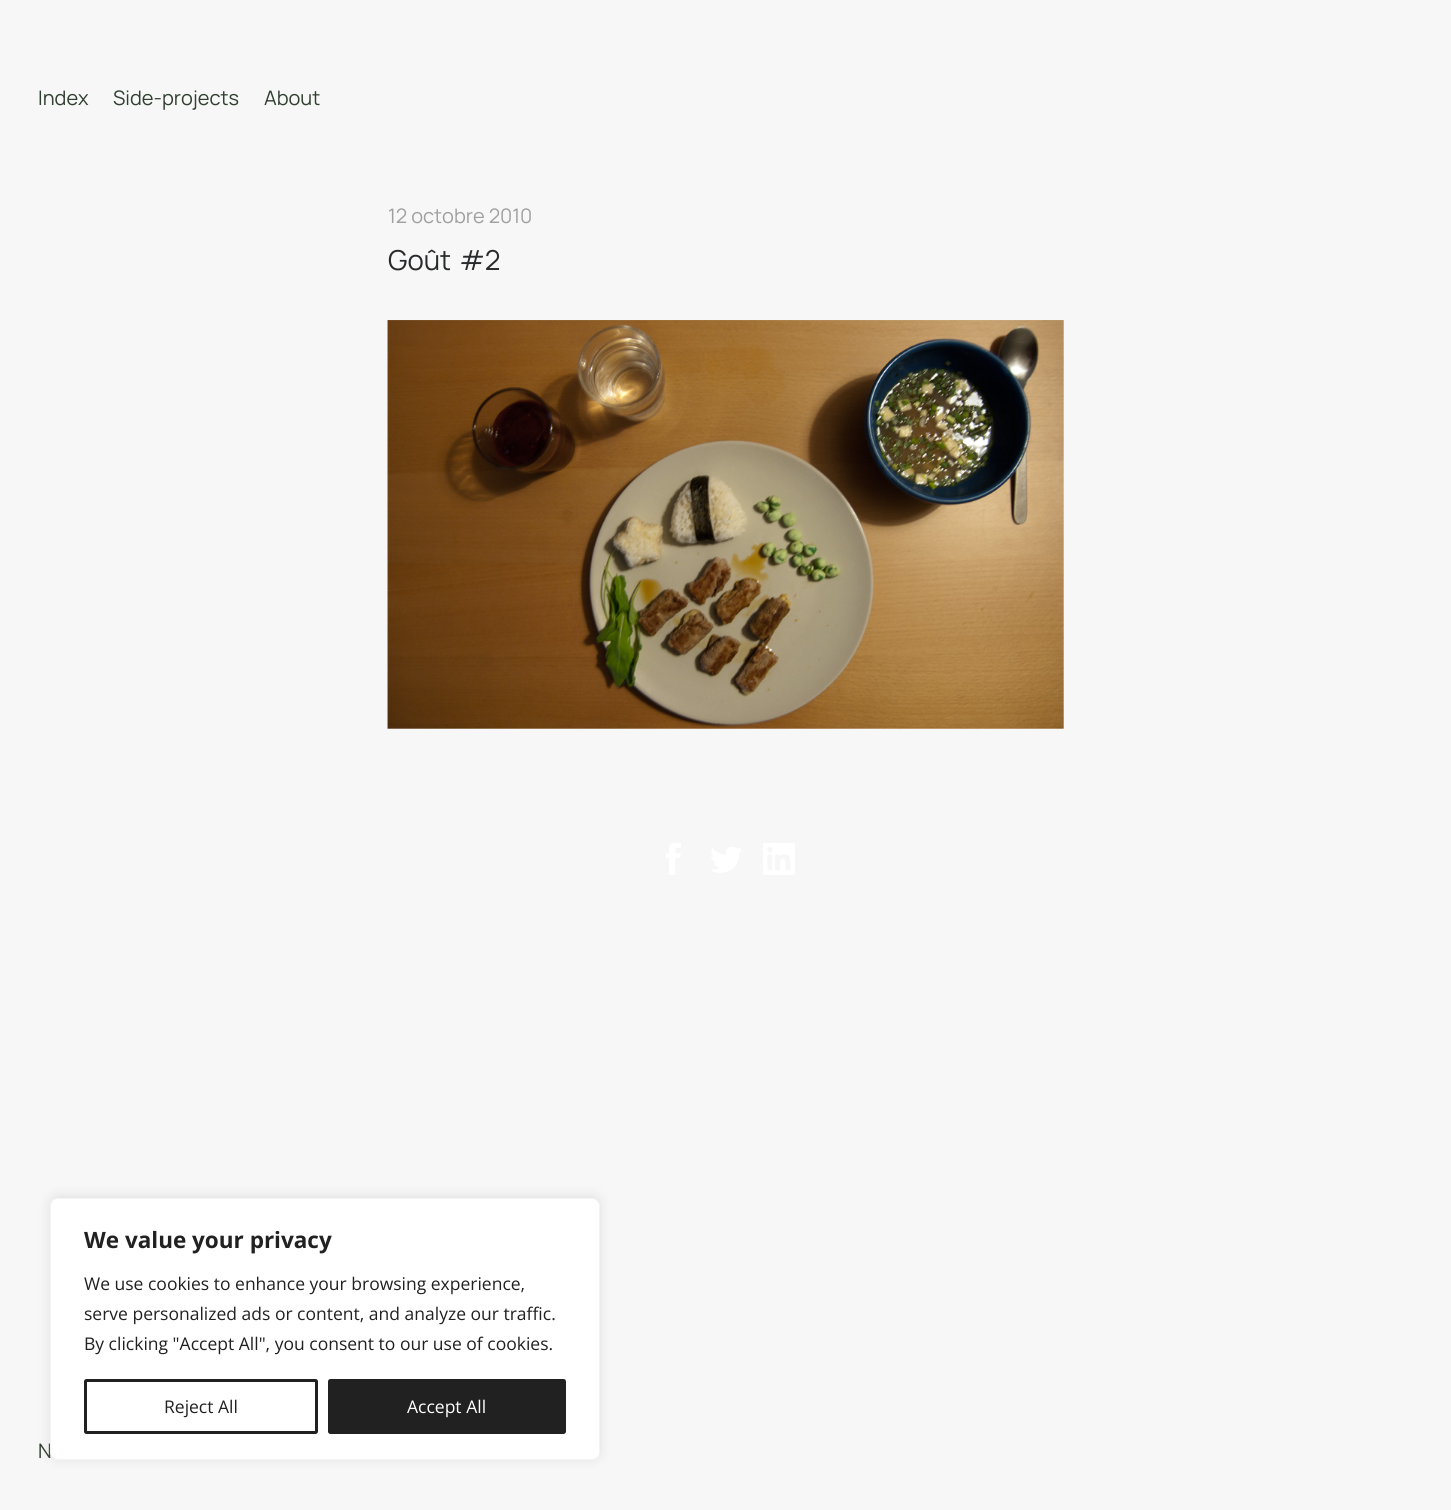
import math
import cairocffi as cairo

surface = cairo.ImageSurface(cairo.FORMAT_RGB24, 1451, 1510)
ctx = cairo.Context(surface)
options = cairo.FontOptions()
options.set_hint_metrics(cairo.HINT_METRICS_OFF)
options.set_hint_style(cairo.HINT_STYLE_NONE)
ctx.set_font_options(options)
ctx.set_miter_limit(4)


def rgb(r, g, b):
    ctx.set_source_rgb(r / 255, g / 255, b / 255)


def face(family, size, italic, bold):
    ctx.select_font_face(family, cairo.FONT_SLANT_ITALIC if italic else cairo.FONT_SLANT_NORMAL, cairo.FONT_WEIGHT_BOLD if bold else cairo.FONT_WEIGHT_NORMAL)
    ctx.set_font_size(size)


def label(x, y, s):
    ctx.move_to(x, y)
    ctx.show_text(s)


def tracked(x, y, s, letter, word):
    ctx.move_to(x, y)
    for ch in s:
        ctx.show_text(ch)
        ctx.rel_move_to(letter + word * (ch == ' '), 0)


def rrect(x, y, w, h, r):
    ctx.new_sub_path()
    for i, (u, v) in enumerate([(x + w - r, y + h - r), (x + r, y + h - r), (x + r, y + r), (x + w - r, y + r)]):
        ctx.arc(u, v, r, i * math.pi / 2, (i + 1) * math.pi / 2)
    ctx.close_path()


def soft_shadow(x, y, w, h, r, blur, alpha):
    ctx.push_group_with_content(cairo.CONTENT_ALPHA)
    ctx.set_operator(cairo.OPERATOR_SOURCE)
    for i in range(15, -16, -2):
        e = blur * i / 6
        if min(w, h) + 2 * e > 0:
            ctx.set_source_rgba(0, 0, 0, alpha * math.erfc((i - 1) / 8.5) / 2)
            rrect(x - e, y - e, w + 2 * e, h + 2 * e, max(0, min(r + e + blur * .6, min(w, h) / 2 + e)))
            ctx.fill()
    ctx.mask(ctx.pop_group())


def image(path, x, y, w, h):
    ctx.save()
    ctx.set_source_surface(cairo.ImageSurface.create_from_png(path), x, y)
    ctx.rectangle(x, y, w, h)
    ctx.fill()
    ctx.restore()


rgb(247, 247, 247)
ctx.paint()
face('Manrope', 20, 0, 0)
rgb(49, 63, 48)
label(38, 105, 'Index')
label(113, 105, 'Side-projects')
label(264, 105, 'About')
rgb(160, 160, 160)
label(388, 223, '12 octobre 2010')
face('Manrope', 27.5, 0, 0)
rgb(41, 42, 44)
tracked(388, 270, 'Goût #2', 0, 3)
image('image0.png', 387, 320, 677, 409)
image('image1.png', 666, 843, 15, 32)
image('image2.png', 711, 847, 31, 26)
image('image3.png', 763, 843, 32, 32)
face('Manrope', 20, 0, 0)
rgb(49, 63, 48)
label(38, 1458, 'N')
rgb(172, 171, 171)
soft_shadow(50, 1196, 550, 263, 8, 6, 0.3)
rgb(255, 255, 255)
rrect(50.5, 1198.5, 549, 261, 7.5)
ctx.fill_preserve()
rgb(244, 244, 244)
ctx.set_line_width(1)
ctx.stroke()
face('Open Sans', 22.5, 0, 1)
rgb(33, 33, 33)
label(84, 1248, 'We value your privacy')
face('Open Sans', 17.5, 0, 0)
label(84, 1290, 'We use cookies to enhance your browsing experience,')
label(84, 1320, 'serve personalized ads or content, and analyze our traffic.')
label(84, 1350, 'By clicking "Accept All", you consent to our use of cookies.')
rrect(85.5, 1380.5, 231, 52, 1)
ctx.set_line_width(3)
ctx.stroke()
label(164, 1413, 'Reject All')
rrect(329.5, 1380.5, 235, 52, 1)
ctx.fill_preserve()
ctx.stroke()
rgb(255, 255, 255)
label(407, 1413, 'Accept All')
surface.write_to_png('render.png')
